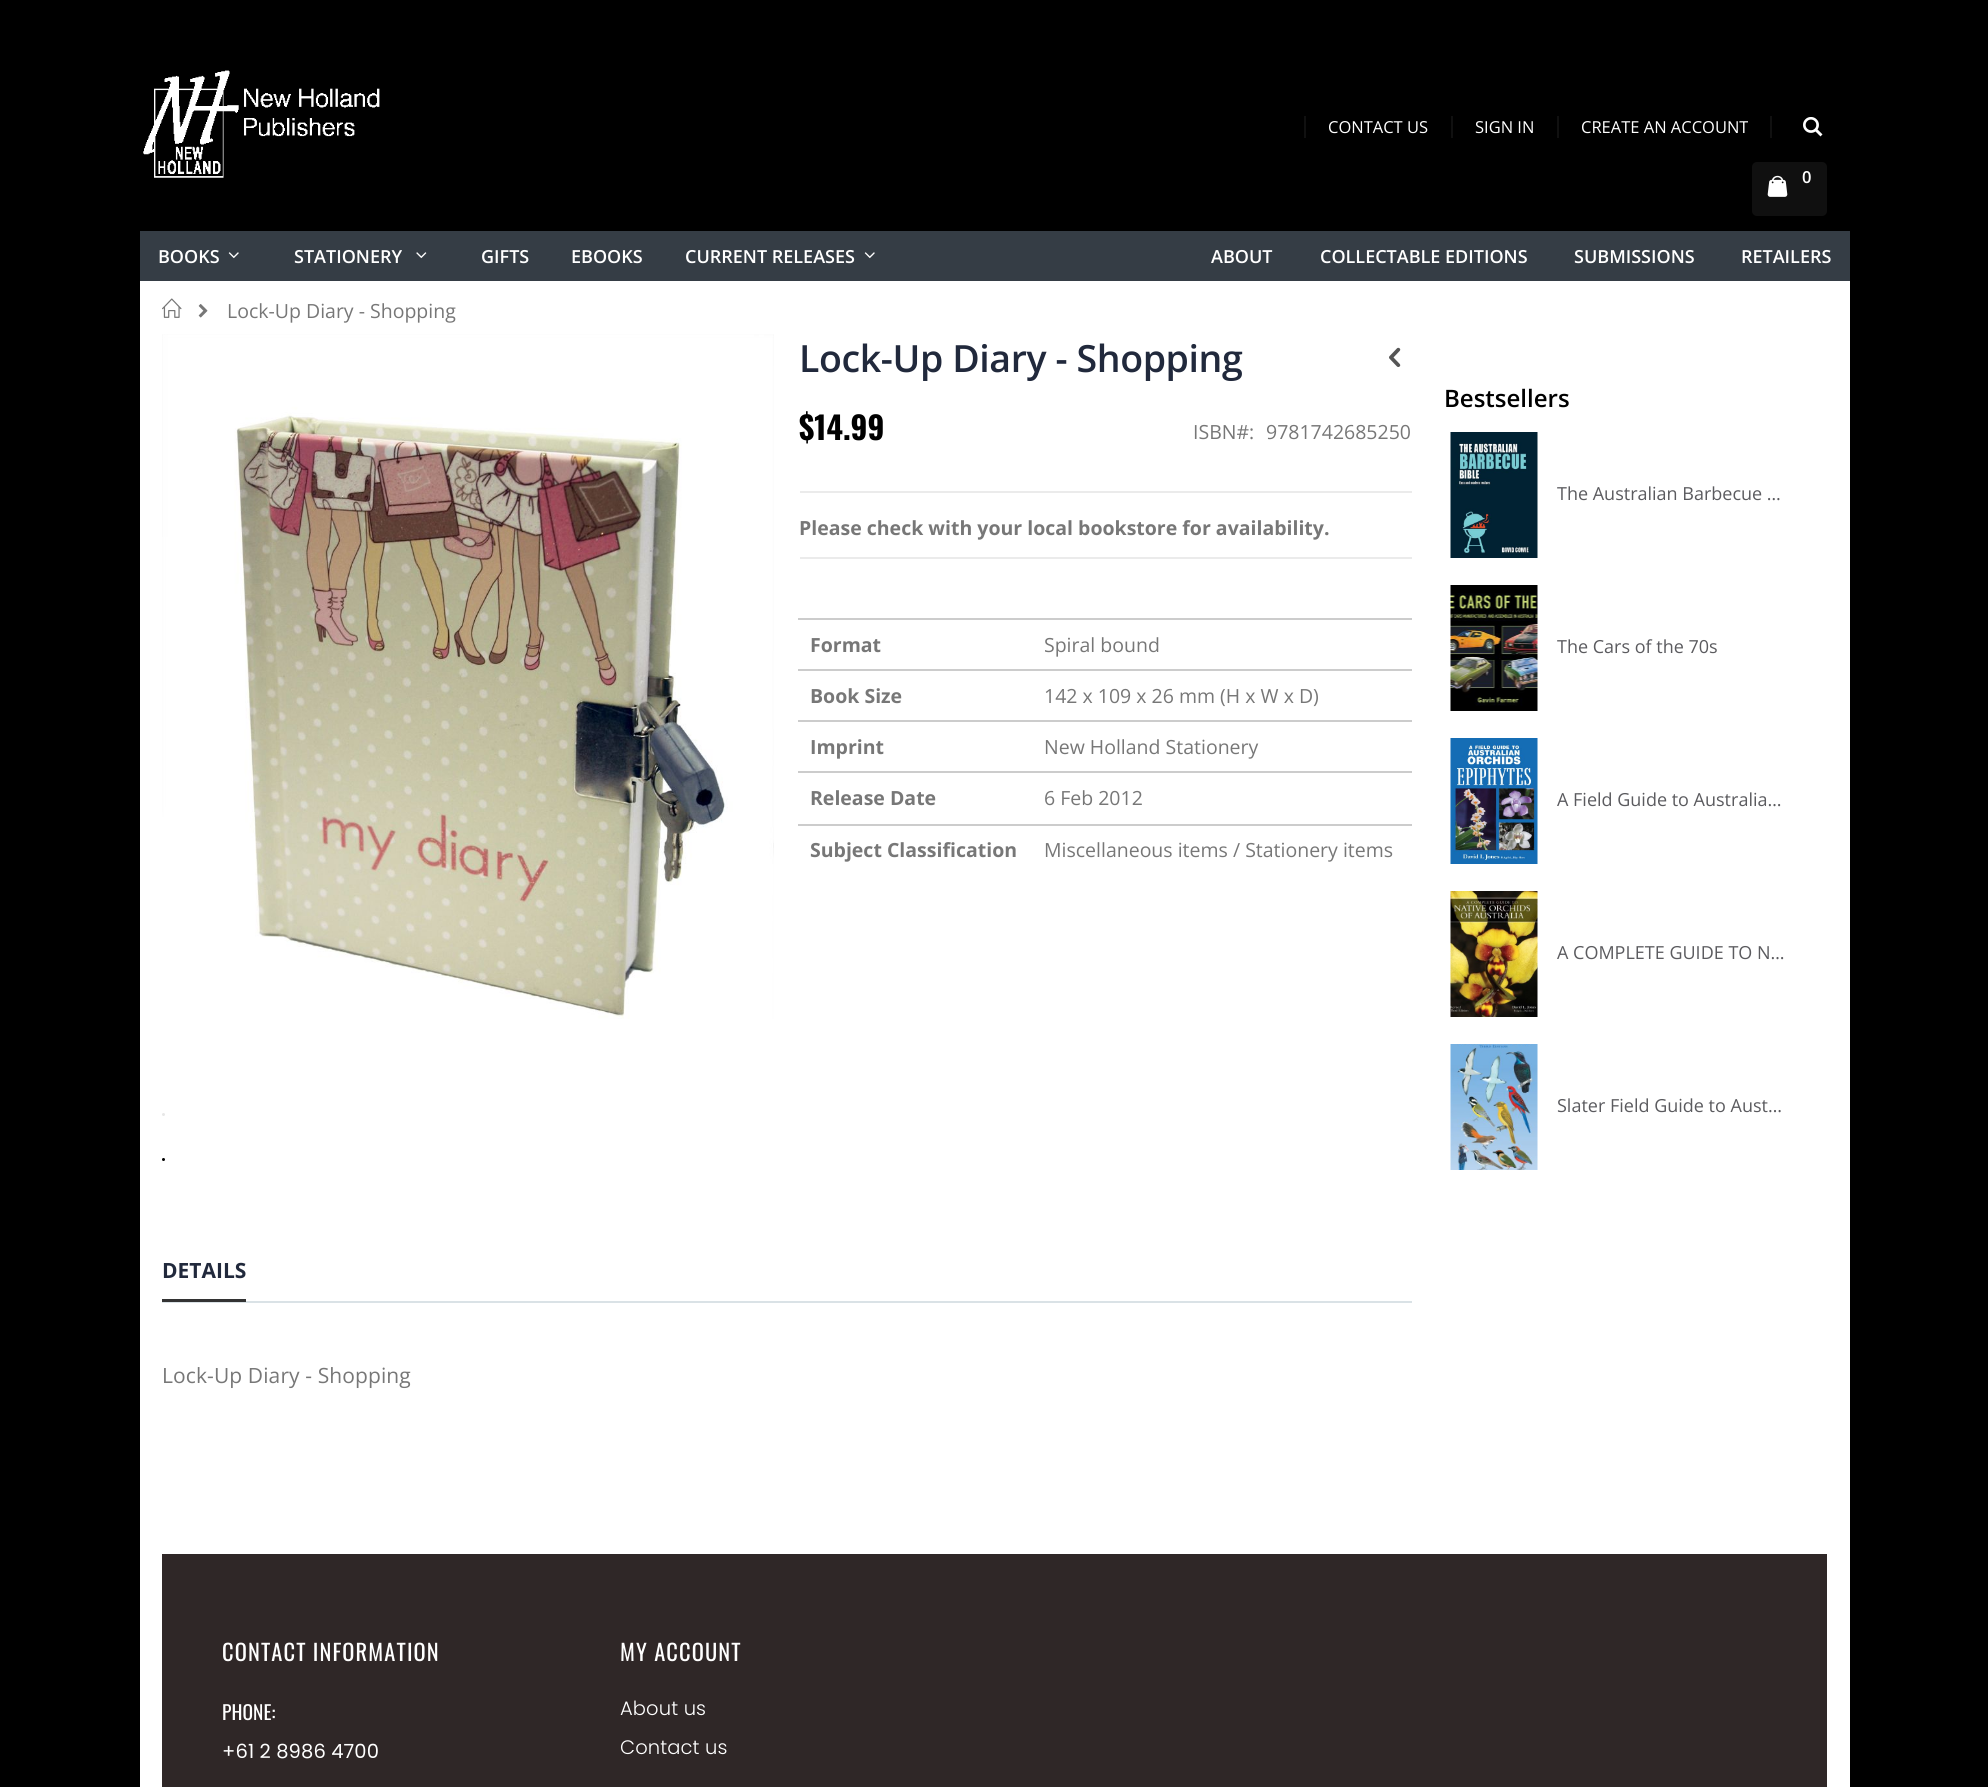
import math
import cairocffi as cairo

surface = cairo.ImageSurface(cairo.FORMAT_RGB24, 1988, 1787)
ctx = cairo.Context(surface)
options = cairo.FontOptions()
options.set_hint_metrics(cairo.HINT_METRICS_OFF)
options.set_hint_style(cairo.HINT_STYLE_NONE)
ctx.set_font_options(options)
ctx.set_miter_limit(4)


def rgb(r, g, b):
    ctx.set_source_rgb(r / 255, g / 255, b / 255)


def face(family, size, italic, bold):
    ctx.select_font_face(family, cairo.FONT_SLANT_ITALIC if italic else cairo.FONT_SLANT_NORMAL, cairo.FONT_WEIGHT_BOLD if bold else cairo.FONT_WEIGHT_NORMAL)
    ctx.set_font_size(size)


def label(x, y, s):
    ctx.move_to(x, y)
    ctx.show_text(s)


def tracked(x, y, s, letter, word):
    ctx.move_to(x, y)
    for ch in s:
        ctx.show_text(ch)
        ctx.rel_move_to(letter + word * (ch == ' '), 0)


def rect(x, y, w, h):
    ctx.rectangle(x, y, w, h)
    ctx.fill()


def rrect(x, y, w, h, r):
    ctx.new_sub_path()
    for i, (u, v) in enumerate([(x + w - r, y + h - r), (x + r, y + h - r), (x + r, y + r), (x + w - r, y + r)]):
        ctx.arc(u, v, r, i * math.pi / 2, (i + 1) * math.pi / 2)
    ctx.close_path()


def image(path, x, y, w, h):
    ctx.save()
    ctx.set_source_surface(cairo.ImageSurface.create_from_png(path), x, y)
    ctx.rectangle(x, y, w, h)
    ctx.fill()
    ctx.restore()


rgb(0, 0, 0)
ctx.paint()
rgb(255, 255, 255)
rect(140, 281, 1710, 1506)
image('image0.png', 143, 70, 237, 108)
rgb(16, 16, 16)
rect(1304, 116, 2, 22)
face('Open Sans', 16.5, 0, 0)
rgb(255, 255, 255)
label(1328, 133, 'CONTACT US')
rgb(16, 16, 16)
rect(1451, 116, 2, 22)
rgb(255, 255, 255)
label(1475, 133, 'SIGN IN')
rgb(16, 16, 16)
rect(1557, 116, 2, 22)
rgb(255, 255, 255)
label(1581, 133, 'CREATE AN ACCOUNT')
rgb(16, 16, 16)
rect(1770, 116, 2, 22)
image('image1.png', 1803, 117, 20, 20)
rrect(1752, 162, 75, 54, 5)
ctx.fill()
image('image2.png', 1767, 175, 21, 22)
face('Open Sans SemiBold', 16.5, 0, 0)
rgb(255, 255, 255)
label(1802, 183, '0')
rgb(53, 61, 69)
rect(140, 231, 1710, 50)
face('Open Sans SemiBold', 18, 0, 0)
rgb(255, 255, 255)
label(158, 263, 'BOOKS')
image('image3.png', 228, 252, 11, 7)
label(294, 263, 'STATIONERY')
image('image4.png', 416, 252, 11, 7)
label(481, 263, 'GIFTS')
label(571, 263, 'EBOOKS')
label(685, 263, 'CURRENT RELEASES')
image('image3.png', 864, 252, 11, 7)
label(1211, 263, 'ABOUT')
label(1320, 263, 'COLLECTABLE EDITIONS')
label(1574, 263, 'SUBMISSIONS')
label(1741, 263, 'RETAILERS')
image('image5.png', 162, 298, 20, 20)
image('image6.png', 198, 304, 10, 14)
face('Open Sans', 19.5, 0, 0)
rgb(119, 119, 119)
label(227, 318, 'Lock-Up Diary - Shopping')
image('image7.png', 162, 334, 612, 685)
rgb(231, 231, 231)
ctx.arc(163.5, 1114.5, 1.5, 0, 2 * math.pi)
ctx.fill()
rgb(0, 0, 0)
ctx.arc(163.5, 1159.5, 1.5, 0, 2 * math.pi)
ctx.fill()
face('Open Sans SemiBold', 37.5, 0, 0)
rgb(33, 41, 60)
tracked(799, 372, 'Lock-Up Diary - Shopping', -0.4, 0)
image('image8.png', 1389, 347, 12, 20)
rgb(235, 235, 235)
rect(800, 491, 612, 2)
face('Oswald', 31.5, 0, 1)
rgb(0, 0, 0)
label(799, 440, '$14.99')
face('Open Sans', 19.5, 0, 0)
rgb(119, 119, 119)
label(1193, 439, 'ISBN#:')
label(1266, 439, '9781742685250')
face('Open Sans', 19.5, 0, 1)
label(799, 535, 'Please check with your local bookstore for availability.')
rgb(235, 235, 235)
rect(800, 557, 612, 2)
rgb(119, 119, 119)
label(810, 652, 'Format')
rgb(204, 204, 204)
rect(798, 618, 614, 2)
face('Open Sans', 19.5, 0, 0)
rgb(119, 119, 119)
label(1044, 652, 'Spiral bound')
face('Open Sans', 19.5, 0, 1)
label(810, 703, 'Book Size')
rgb(204, 204, 204)
rect(798, 669, 614, 2)
face('Open Sans', 19.5, 0, 0)
rgb(119, 119, 119)
label(1044, 703, '142 x 109 x 26 mm (H x W x D)')
face('Open Sans', 19.5, 0, 1)
label(810, 754, 'Imprint')
rgb(204, 204, 204)
rect(798, 720, 614, 2)
face('Open Sans', 19.5, 0, 0)
rgb(119, 119, 119)
label(1044, 754, 'New Holland Stationery')
face('Open Sans', 19.5, 0, 1)
label(810, 805, 'Release Date')
rgb(204, 204, 204)
rect(798, 771, 614, 2)
face('Open Sans', 19.5, 0, 0)
rgb(119, 119, 119)
label(1044, 805, '6 Feb 2012')
face('Open Sans', 19.5, 0, 1)
label(810, 857, 'Subject Classification')
rgb(204, 204, 204)
rect(798, 824, 614, 2)
face('Open Sans', 19.5, 0, 0)
rgb(119, 119, 119)
label(1044, 857, 'Miscellaneous items / Stationery items')
rgb(218, 226, 230)
rect(162, 1301, 1250, 2)
rgb(51, 51, 51)
rect(162, 1299, 84, 3)
face('Open Sans', 21, 0, 1)
rgb(33, 41, 60)
label(162, 1278, 'DETAILS')
face('Open Sans', 21, 0, 0)
rgb(119, 119, 119)
tracked(162, 1383, 'Lock-Up Diary - Shopping', 0.1, 0)
face('Open Sans SemiBold', 24, 0, 0)
rgb(0, 0, 0)
label(1444, 407, 'Bestsellers')
image('image9.png', 1450, 432, 88, 126)
face('Open Sans', 18, 0, 0)
rgb(91, 91, 95)
label(1557, 500, 'The Australian Barbecue …')
image('image10.png', 1450, 585, 88, 126)
label(1557, 653, 'The Cars of the 70s')
image('image11.png', 1450, 738, 88, 126)
label(1557, 806, 'A Field Guide to Australia…')
image('image12.png', 1450, 891, 88, 126)
label(1557, 959, 'A COMPLETE GUIDE TO N…')
image('image13.png', 1450, 1044, 88, 126)
label(1557, 1112, 'Slater Field Guide to Aust…')
rgb(47, 39, 39)
rect(162, 1554, 1665, 233)
face('Oswald', 22.5, 0, 0)
rgb(255, 255, 255)
tracked(222, 1661, 'CONTACT INFORMATION', 1.1, 0)
face('Oswald', 19.5, 0, 0)
tracked(222, 1720, 'PHONE:', 0.1, 0)
face('Poppins', 19.5, 0, 0)
tracked(222, 1758, '+61 2 8986 4700', 0.1, 0)
face('Oswald', 22.5, 0, 0)
tracked(620, 1661, 'MY ACCOUNT', 1.1, 0)
face('Poppins Light', 19.5, 0, 0)
tracked(620, 1715, 'About us', 0.1, 0)
tracked(620, 1754, 'Contact us', 0.1, 0)
surface.write_to_png('render.png')
